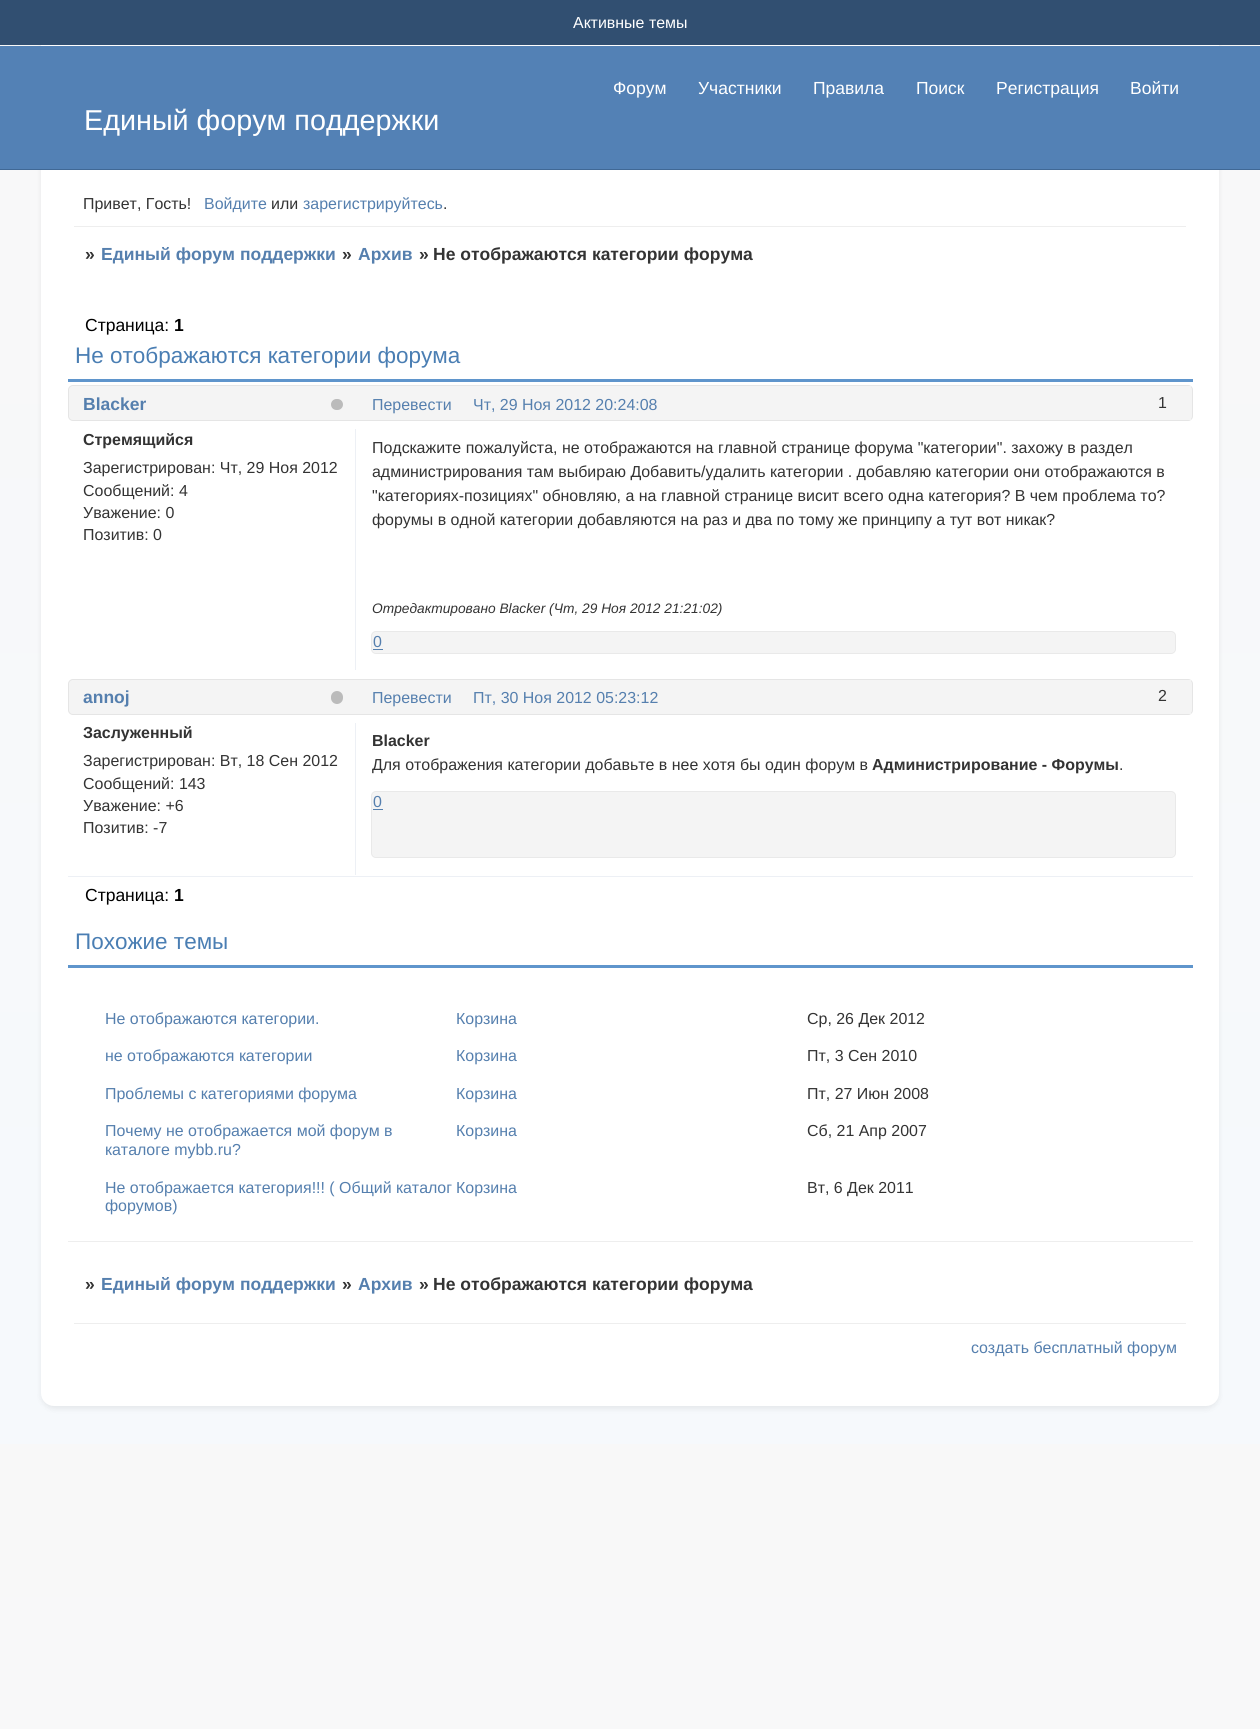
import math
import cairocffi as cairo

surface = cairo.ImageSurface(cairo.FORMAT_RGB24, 1260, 1729)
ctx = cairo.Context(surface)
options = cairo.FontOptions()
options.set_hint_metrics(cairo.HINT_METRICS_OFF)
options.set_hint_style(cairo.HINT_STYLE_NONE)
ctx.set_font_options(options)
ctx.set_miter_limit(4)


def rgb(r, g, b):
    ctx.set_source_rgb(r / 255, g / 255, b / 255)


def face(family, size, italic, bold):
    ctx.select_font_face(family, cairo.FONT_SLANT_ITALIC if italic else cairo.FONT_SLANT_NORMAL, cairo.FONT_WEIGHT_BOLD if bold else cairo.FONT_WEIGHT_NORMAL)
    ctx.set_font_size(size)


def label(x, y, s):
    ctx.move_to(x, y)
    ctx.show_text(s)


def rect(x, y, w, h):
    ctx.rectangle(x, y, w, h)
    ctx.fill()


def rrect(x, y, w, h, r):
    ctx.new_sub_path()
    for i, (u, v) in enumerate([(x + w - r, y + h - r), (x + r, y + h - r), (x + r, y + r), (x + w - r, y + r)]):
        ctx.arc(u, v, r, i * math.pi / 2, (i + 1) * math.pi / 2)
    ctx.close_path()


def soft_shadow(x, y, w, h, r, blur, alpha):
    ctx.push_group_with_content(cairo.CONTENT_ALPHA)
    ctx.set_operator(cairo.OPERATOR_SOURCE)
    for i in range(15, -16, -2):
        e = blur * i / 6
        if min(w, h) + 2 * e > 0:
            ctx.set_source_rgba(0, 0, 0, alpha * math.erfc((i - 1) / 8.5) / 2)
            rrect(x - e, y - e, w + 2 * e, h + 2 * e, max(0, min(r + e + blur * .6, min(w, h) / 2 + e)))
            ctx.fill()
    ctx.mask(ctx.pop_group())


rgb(255, 255, 255)
ctx.paint()
gradient = cairo.LinearGradient(630, 0, 630, 1444)
gradient.add_color_stop_rgba(0.02, 0.973, 0.973, 0.973, 1)
gradient.add_color_stop_rgba(0.88, 0.965, 0.976, 0.988, 1)
ctx.set_source(gradient)
rect(0, 45, 1260, 1399)
gradient = cairo.LinearGradient(630, 1444, 630, 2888)
gradient.add_color_stop_rgba(0.02, 0.973, 0.973, 0.973, 1)
gradient.add_color_stop_rgba(0.88, 0.965, 0.976, 0.988, 1)
ctx.set_source(gradient)
rect(0, 1444, 1260, 285)
rgb(0, 0, 0)
soft_shadow(41, 3, 1178, 1406, 13, 3, 0.07)
rgb(255, 255, 255)
rrect(41, 0, 1178, 1406, 13)
ctx.fill()
rgb(49, 79, 113)
rect(0, 0, 1260, 45)
face('Liberation Sans', 15.95, 0, 0)
rgb(255, 255, 255)
label(573, 28, 'Активные темы')
rgb(83, 129, 181)
rect(0, 46, 1260, 123)
face('Liberation Sans', 17.5, 0, 0)
rgb(255, 255, 255)
label(613, 94, 'Форум')
label(698, 94, 'Участники')
label(813, 94, 'Правила')
label(916, 94, 'Поиск')
label(996, 94, 'Регистрация')
label(1130, 94, 'Войти')
rgb(64, 104, 149)
rect(0, 169, 1260, 1)
face('Liberation Sans', 28.75, 0, 0)
rgb(255, 255, 255)
label(84, 130, 'Единый форум поддержки')
face('Liberation Sans', 15.95, 0, 0)
rgb(51, 51, 51)
label(83, 209, 'Привет, Гость!')
rgb(85, 127, 174)
label(204, 209, 'Войдите')
rgb(51, 51, 51)
label(271, 209, 'или')
rgb(85, 127, 174)
label(303, 209, 'зарегистрируйтесь')
rgb(51, 51, 51)
label(443, 209, '.')
rgb(238, 238, 238)
rect(74, 226, 1112, 1)
face('Liberation Sans', 17.5, 0, 1)
rgb(51, 51, 51)
label(85, 260, '»')
rgb(85, 127, 174)
label(101, 260, 'Единый форум поддержки')
rgb(51, 51, 51)
label(342, 260, '»')
rgb(85, 127, 174)
label(358, 260, 'Архив')
rgb(51, 51, 51)
label(419, 260, '»')
label(433, 260, 'Не отображаются категории форума')
face('Liberation Sans', 17.5, 0, 0)
rgb(0, 0, 0)
label(85, 331, 'Страница:')
face('Liberation Sans', 17.5, 0, 1)
label(174, 331, '1')
rgb(95, 149, 204)
rect(68, 379, 1125, 3)
face('Liberation Sans', 22.5, 0, 0)
rgb(74, 126, 179)
label(75, 363, 'Не отображаются категории форума')
rgb(244, 244, 244)
rrect(68.5, 385.5, 1124, 35, 4.5)
ctx.fill_preserve()
rgb(229, 229, 229)
ctx.set_line_width(1)
ctx.stroke()
face('Liberation Sans', 17.5, 0, 1)
rgb(85, 127, 174)
label(83, 410, 'Blacker')
rgb(187, 187, 187)
rrect(331, 399, 12, 11, 5.5)
ctx.fill()
face('Liberation Sans', 15.95, 0, 1)
rgb(51, 51, 51)
label(83, 445, 'Стремящийся')
face('Liberation Sans', 15.95, 0, 0)
label(83, 473, 'Зарегистрирован: Чт, 29 Ноя 2012')
label(83, 496, 'Сообщений: 4')
label(83, 518, 'Уважение: 0')
label(83, 540, 'Позитив: 0')
rgb(237, 240, 245)
rect(355, 429, 1, 241)
rgb(51, 51, 51)
label(372, 453, 'Подскажите пожалуйста, не отображаются на главной странице форума "категории". захожу в раздел')
label(372, 477, 'администрирования там выбираю Добавить/удалить категории . добавляю категории они отображаются в')
label(372, 501, '"категориях-позициях" обновляю, а на главной странице висит всего одна категория? В чем проблема то?')
label(372, 525, 'форумы в одной категории добавляются на раз и два по тому же принципу а тут вот никак?')
face('Liberation Sans', 13.75, 1, 0)
label(372, 613, 'Отредактировано Blacker (Чт, 29 Ноя 2012 21:21:02)')
rgb(244, 244, 244)
rrect(371.5, 631.5, 804, 22, 4.5)
ctx.fill_preserve()
rgb(233, 233, 233)
ctx.stroke()
face('Liberation Sans', 15.95, 0, 0)
rgb(85, 127, 174)
label(373, 647, '0')
rect(373, 649, 10, 1)
rgb(244, 244, 244)
rect(1189, 386, 2, 34)
rgb(85, 127, 174)
label(372, 410, 'Перевести')
label(473, 410, 'Чт, 29 Ноя 2012 20:24:08')
rgb(51, 51, 51)
label(1158, 408, '1')
rgb(237, 240, 245)
rect(68, 876, 1125, 1)
rgb(244, 244, 244)
rrect(68.5, 679.5, 1124, 35, 4.5)
ctx.fill_preserve()
rgb(229, 229, 229)
ctx.stroke()
rgb(244, 244, 244)
rect(1189, 680, 2, 34)
rgb(85, 127, 174)
label(372, 703, 'Перевести')
label(473, 703, 'Пт, 30 Ноя 2012 05:23:12')
rgb(51, 51, 51)
label(1158, 701, '2')
face('Liberation Sans', 17.5, 0, 1)
rgb(85, 127, 174)
label(83, 703, 'annoj')
rgb(187, 187, 187)
rrect(331, 691, 12, 13, 6)
ctx.fill()
face('Liberation Sans', 15.95, 0, 1)
rgb(51, 51, 51)
label(83, 738, 'Заслуженный')
face('Liberation Sans', 15.95, 0, 0)
label(83, 766, 'Зарегистрирован: Вт, 18 Сен 2012')
label(83, 789, 'Сообщений: 143')
label(83, 811, 'Уважение: +6')
label(83, 833, 'Позитив: -7')
rgb(237, 240, 245)
rect(355, 723, 1, 152)
face('Liberation Sans', 15.95, 0, 1)
rgb(51, 51, 51)
label(372, 746, 'Blacker')
face('Liberation Sans', 15.95, 0, 0)
label(372, 770, 'Для отображения категории добавьте в нее хотя бы один форум в')
face('Liberation Sans', 15.95, 0, 1)
label(872, 770, 'Администрирование - Форумы')
face('Liberation Sans', 15.95, 0, 0)
label(1119, 770, '.')
rgb(244, 244, 244)
rrect(371.5, 791.5, 804, 66, 4.5)
ctx.fill_preserve()
rgb(233, 233, 233)
ctx.stroke()
rgb(85, 127, 174)
label(373, 807, '0')
rect(373, 809, 10, 1)
face('Liberation Sans', 17.5, 0, 0)
rgb(0, 0, 0)
label(85, 901, 'Страница:')
face('Liberation Sans', 17.5, 0, 1)
label(174, 901, '1')
rgb(95, 149, 204)
rect(68, 965, 1125, 3)
face('Liberation Sans', 22.5, 0, 0)
rgb(74, 126, 179)
label(75, 949, 'Похожие темы')
rgb(238, 238, 238)
rect(68, 1241, 1125, 1)
face('Liberation Sans', 15.95, 0, 0)
rgb(85, 127, 174)
label(105, 1024, 'Не отображаются категории.')
label(456, 1024, 'Корзина')
rgb(51, 51, 51)
label(807, 1024, 'Ср, 26 Дек 2012')
rgb(85, 127, 174)
label(105, 1061, 'не отображаются категории')
label(456, 1061, 'Корзина')
rgb(51, 51, 51)
label(807, 1061, 'Пт, 3 Сен 2010')
rgb(85, 127, 174)
label(105, 1099, 'Проблемы с категориями форума')
label(456, 1099, 'Корзина')
rgb(51, 51, 51)
label(807, 1099, 'Пт, 27 Июн 2008')
rgb(85, 127, 174)
label(105, 1136, 'Почему не отображается мой форум в')
label(105, 1155, 'каталоге mybb.ru?')
label(456, 1136, 'Корзина')
rgb(51, 51, 51)
label(807, 1136, 'Сб, 21 Апр 2007')
rgb(85, 127, 174)
label(105, 1193, 'Не отображается категория!!! ( Общий каталог')
label(105, 1211, 'форумов)')
label(456, 1193, 'Корзина')
rgb(51, 51, 51)
label(807, 1193, 'Вт, 6 Дек 2011')
face('Liberation Sans', 17.5, 0, 1)
label(85, 1290, '»')
rgb(85, 127, 174)
label(101, 1290, 'Единый форум поддержки')
rgb(51, 51, 51)
label(342, 1290, '»')
rgb(85, 127, 174)
label(358, 1290, 'Архив')
rgb(51, 51, 51)
label(419, 1290, '»')
label(433, 1290, 'Не отображаются категории форума')
rgb(238, 238, 238)
rect(74, 1323, 1112, 1)
face('Liberation Sans', 15.95, 0, 0)
rgb(85, 127, 174)
label(971, 1353, 'создать бесплатный форум')
surface.write_to_png('render.png')
